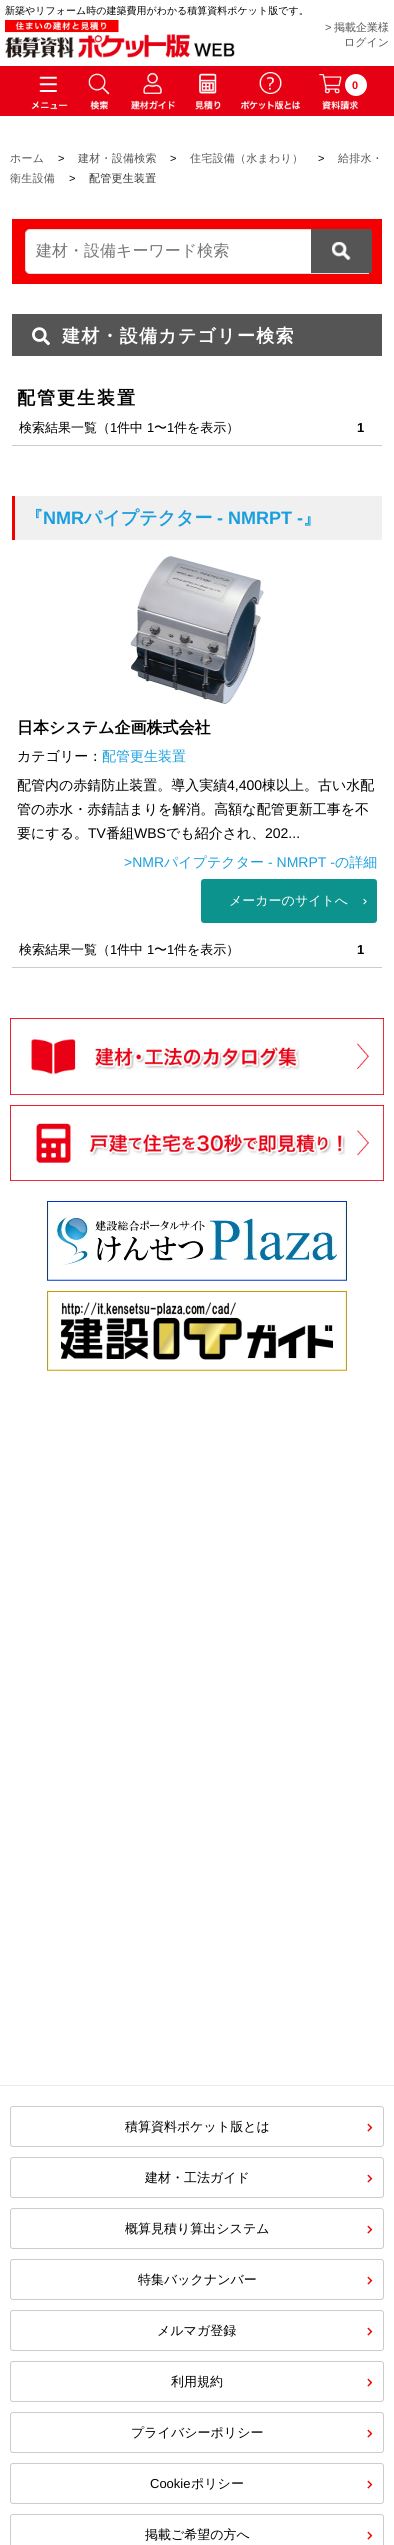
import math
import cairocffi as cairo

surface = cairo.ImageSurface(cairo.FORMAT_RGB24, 394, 2545)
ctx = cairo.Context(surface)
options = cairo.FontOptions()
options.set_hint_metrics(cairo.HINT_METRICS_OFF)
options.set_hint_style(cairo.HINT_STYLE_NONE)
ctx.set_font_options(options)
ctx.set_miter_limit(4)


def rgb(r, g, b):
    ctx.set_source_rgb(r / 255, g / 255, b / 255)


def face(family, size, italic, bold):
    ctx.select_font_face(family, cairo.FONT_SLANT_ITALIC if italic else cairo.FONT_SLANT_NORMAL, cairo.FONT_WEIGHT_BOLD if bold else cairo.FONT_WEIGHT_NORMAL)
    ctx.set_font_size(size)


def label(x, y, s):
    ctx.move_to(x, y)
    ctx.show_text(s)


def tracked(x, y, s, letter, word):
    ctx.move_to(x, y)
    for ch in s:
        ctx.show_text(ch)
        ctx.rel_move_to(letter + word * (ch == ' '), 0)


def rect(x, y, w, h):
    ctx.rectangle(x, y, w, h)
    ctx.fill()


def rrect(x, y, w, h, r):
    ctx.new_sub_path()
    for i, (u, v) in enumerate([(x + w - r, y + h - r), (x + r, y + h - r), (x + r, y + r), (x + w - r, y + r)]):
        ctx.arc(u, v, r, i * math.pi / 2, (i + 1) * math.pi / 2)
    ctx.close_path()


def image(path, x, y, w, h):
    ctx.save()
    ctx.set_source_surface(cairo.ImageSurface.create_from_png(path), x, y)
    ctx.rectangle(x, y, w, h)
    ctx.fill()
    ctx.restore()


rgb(255, 255, 255)
ctx.paint()
face('WenQuanYi Zen Hei Medium', 10, 0, 0)
rgb(0, 0, 0)
label(5, 14, '新築やリフォーム時の建築費用がわかる積算資料ポケット版です。')
image('image0.png', 5, 20, 230, 38)
face('Liberation Sans', 11, 0, 0)
rgb(85, 85, 85)
label(325, 31, '>')
face('WenQuanYi Zen Hei Medium', 11, 0, 0)
label(334, 31, '掲載企業様')
label(344, 46, 'ログイン')
rgb(230, 0, 19)
rect(0, 66, 394, 50)
image('image1.png', 31, 76, 37, 34)
image('image2.png', 88, 73, 22, 37)
image('image3.png', 131, 72, 44, 38)
image('image4.png', 195, 73, 26, 37)
image('image5.png', 240, 72, 60, 38)
image('image6.png', 319, 74, 39, 36)
rgb(255, 255, 255)
ctx.arc(356, 85, 11, 0, 2 * math.pi)
ctx.fill()
face('Liberation Sans', 11, 0, 1)
rgb(245, 0, 0)
label(352, 89, '0')
face('WenQuanYi Zen Hei Medium', 11, 0, 0)
rgb(85, 85, 85)
tracked(10, 162, 'ホーム', 0.25, 0)
face('Liberation Sans', 11, 0, 0)
rgb(0, 0, 0)
tracked(58, 162, '>', 0.25, 0)
face('WenQuanYi Zen Hei Medium', 11, 0, 0)
rgb(85, 85, 85)
tracked(78, 162, '建材・設備検索', 0.25, 0)
face('Liberation Sans', 11, 0, 0)
rgb(0, 0, 0)
tracked(170, 162, '>', 0.25, 0)
face('WenQuanYi Zen Hei Medium', 11, 0, 0)
rgb(85, 85, 85)
tracked(190, 162, '住宅設備（水まわり）', 0.25, 0)
face('Liberation Sans', 11, 0, 0)
rgb(0, 0, 0)
tracked(318, 162, '>', 0.25, 0)
face('WenQuanYi Zen Hei Medium', 11, 0, 0)
rgb(85, 85, 85)
tracked(338, 162, '給排水・', 0.25, 0)
tracked(10, 182, '衛生設備', 0.25, 0)
face('Liberation Sans', 11, 0, 0)
rgb(0, 0, 0)
tracked(69, 182, '>', 0.25, 0)
face('WenQuanYi Zen Hei Medium', 11, 0, 0)
rgb(51, 51, 51)
tracked(89, 182, '配管更生装置', 0.25, 0)
rgb(245, 0, 0)
rect(12, 219, 370, 65)
rgb(255, 255, 255)
ctx.new_path()
ctx.move_to(30, 229.5)
ctx.line_to(368.5, 229.5)
ctx.line_to(368.5, 273.5)
ctx.line_to(30, 273.5)
ctx.curve_to(27.5, 273.5, 25.5, 271.5, 25.5, 269)
ctx.line_to(25.5, 234)
ctx.curve_to(25.5, 231.5, 27.5, 229.5, 30, 229.5)
ctx.close_path()
ctx.fill_preserve()
rgb(220, 220, 220)
ctx.set_line_width(1)
ctx.stroke()
face('WenQuanYi Zen Hei Medium', 16, 0, 0)
rgb(117, 117, 117)
label(36, 256, '建材・設備キーワード検索')
image('image7.png', 311, 229, 61, 44)
rgb(85, 85, 85)
rect(12, 314, 370, 42)
image('image8.png', 32, 327, 18, 19)
face('WenQuanYi Zen Hei', 18, 0, 1)
rgb(255, 255, 255)
tracked(62, 342, '建材・設備カテゴリー検索', 1.25, 0)
rgb(0, 0, 0)
tracked(17, 404, '配管更生装置', 2, 0)
rgb(204, 204, 204)
rect(12, 445, 370, 1)
face('WenQuanYi Zen Hei Medium', 13, 0, 0)
rgb(0, 0, 0)
label(19, 432, '検索結果一覧（')
face('Liberation Sans', 13, 0, 0)
label(110, 432, '1')
face('WenQuanYi Zen Hei Medium', 13, 0, 0)
label(117, 432, '件中')
face('Liberation Sans', 13, 0, 0)
label(147, 432, '1')
face('WenQuanYi Zen Hei Medium', 13, 0, 0)
label(154, 432, '〜')
face('Liberation Sans', 13, 0, 0)
label(167, 432, '1')
face('WenQuanYi Zen Hei Medium', 13, 0, 0)
label(174, 432, '件を表示）')
face('Liberation Sans', 13, 0, 1)
label(357, 432, '1')
rgb(240, 240, 240)
rect(15, 496, 367, 44)
rgb(245, 0, 0)
rect(12, 496, 3, 44)
face('WenQuanYi Zen Hei', 18, 0, 1)
rgb(26, 158, 222)
label(25, 524, '『')
face('Liberation Sans', 18, 0, 1)
label(43, 524, 'NMR')
face('WenQuanYi Zen Hei', 18, 0, 1)
label(84, 524, 'パイプテクター')
face('Liberation Sans', 18, 0, 1)
label(217, 524, '- NMRPT -')
face('WenQuanYi Zen Hei', 18, 0, 1)
label(303, 524, '』')
image('image9.png', 130, 556, 134, 148)
face('WenQuanYi Zen Hei', 16, 0, 1)
rgb(0, 0, 0)
label(17, 733, '日本システム企画株式会社')
face('WenQuanYi Zen Hei Medium', 14, 0, 0)
label(17, 761, 'カテゴリー：')
rgb(26, 158, 222)
label(102, 761, '配管更生装置')
rgb(0, 0, 0)
label(17, 790, '配管内の赤錆防止装置。導入実績')
face('Liberation Sans', 14, 0, 0)
label(227, 790, '4,400')
face('WenQuanYi Zen Hei Medium', 14, 0, 0)
label(262, 790, '棟以上。古い水配')
label(17, 814, '管の赤水・赤錆詰まりを解消。高額な配管更新工事を不')
label(17, 838, '要にする。')
face('Liberation Sans', 14, 0, 0)
label(88, 838, 'TV')
face('WenQuanYi Zen Hei Medium', 14, 0, 0)
label(106, 838, '番組')
face('Liberation Sans', 14, 0, 0)
label(134, 838, 'WBS')
face('WenQuanYi Zen Hei Medium', 14, 0, 0)
label(166, 838, 'でも紹介され、')
face('Liberation Sans', 14, 0, 0)
label(265, 838, '202...')
rgb(26, 158, 222)
label(124, 867, '>NMR')
face('WenQuanYi Zen Hei Medium', 14, 0, 0)
label(164, 867, 'パイプテクター')
face('Liberation Sans', 14, 0, 0)
label(268, 867, '- NMRPT -')
face('WenQuanYi Zen Hei Medium', 14, 0, 0)
label(335, 867, 'の詳細')
rgb(13, 147, 141)
rrect(201, 879, 176, 44, 3)
ctx.fill()
face('WenQuanYi Zen Hei Medium', 13, 0, 0)
rgb(255, 255, 255)
label(229, 905, 'メーカーのサイトへ')
image('image10.png', 363, 898, 4, 7)
rgb(204, 204, 204)
rect(12, 967, 370, 1)
rgb(0, 0, 0)
label(19, 954, '検索結果一覧（')
face('Liberation Sans', 13, 0, 0)
label(110, 954, '1')
face('WenQuanYi Zen Hei Medium', 13, 0, 0)
label(117, 954, '件中')
face('Liberation Sans', 13, 0, 0)
label(147, 954, '1')
face('WenQuanYi Zen Hei Medium', 13, 0, 0)
label(154, 954, '〜')
face('Liberation Sans', 13, 0, 0)
label(167, 954, '1')
face('WenQuanYi Zen Hei Medium', 13, 0, 0)
label(174, 954, '件を表示）')
face('Liberation Sans', 13, 0, 1)
label(357, 954, '1')
image('image11.png', 10, 1018, 374, 77)
image('image12.png', 10, 1105, 374, 76)
image('image13.png', 47, 1201, 300, 80)
image('image14.png', 47, 1291, 300, 80)
rgb(233, 233, 233)
rect(0, 2085, 394, 1)
rrect(10.5, 2106.5, 373, 40, 2.5)
rgb(204, 204, 204)
ctx.stroke()
face('WenQuanYi Zen Hei Medium', 13, 0, 0)
rgb(0, 0, 0)
label(125, 2131, '積算資料ポケット版とは')
image('image15.png', 367, 2123, 6, 9)
rrect(10.5, 2157.5, 373, 40, 2.5)
rgb(204, 204, 204)
ctx.stroke()
rgb(0, 0, 0)
label(145, 2182, '建材・工法ガイド')
image('image15.png', 367, 2174, 6, 9)
rrect(10.5, 2208.5, 373, 40, 2.5)
rgb(204, 204, 204)
ctx.stroke()
rgb(0, 0, 0)
label(125, 2233, '概算見積り算出システム')
image('image15.png', 367, 2225, 6, 9)
rrect(10.5, 2259.5, 373, 40, 2.5)
rgb(204, 204, 204)
ctx.stroke()
rgb(0, 0, 0)
label(138, 2284, '特集バックナンバー')
image('image15.png', 367, 2276, 6, 9)
rrect(10.5, 2310.5, 373, 40, 2.5)
rgb(204, 204, 204)
ctx.stroke()
rgb(0, 0, 0)
label(157, 2335, 'メルマガ登録')
image('image15.png', 367, 2327, 6, 9)
rrect(10.5, 2361.5, 373, 40, 2.5)
rgb(204, 204, 204)
ctx.stroke()
rgb(0, 0, 0)
label(171, 2386, '利用規約')
image('image15.png', 367, 2378, 6, 9)
rrect(10.5, 2412.5, 373, 40, 2.5)
rgb(204, 204, 204)
ctx.stroke()
rgb(0, 0, 0)
label(131, 2437, 'プライバシーポリシー')
image('image15.png', 367, 2429, 6, 9)
rrect(10.5, 2463.5, 373, 40, 2.5)
rgb(204, 204, 204)
ctx.stroke()
face('Liberation Sans', 13, 0, 0)
rgb(0, 0, 0)
label(150, 2488, 'Cookie')
face('WenQuanYi Zen Hei Medium', 13, 0, 0)
label(191, 2488, 'ポリシー')
image('image15.png', 367, 2480, 6, 9)
rrect(10.5, 2514.5, 373, 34, 2.5)
rgb(204, 204, 204)
ctx.stroke()
rgb(0, 0, 0)
label(145, 2539, '掲載ご希望の方へ')
image('image15.png', 367, 2531, 6, 9)
surface.write_to_png('render.png')
